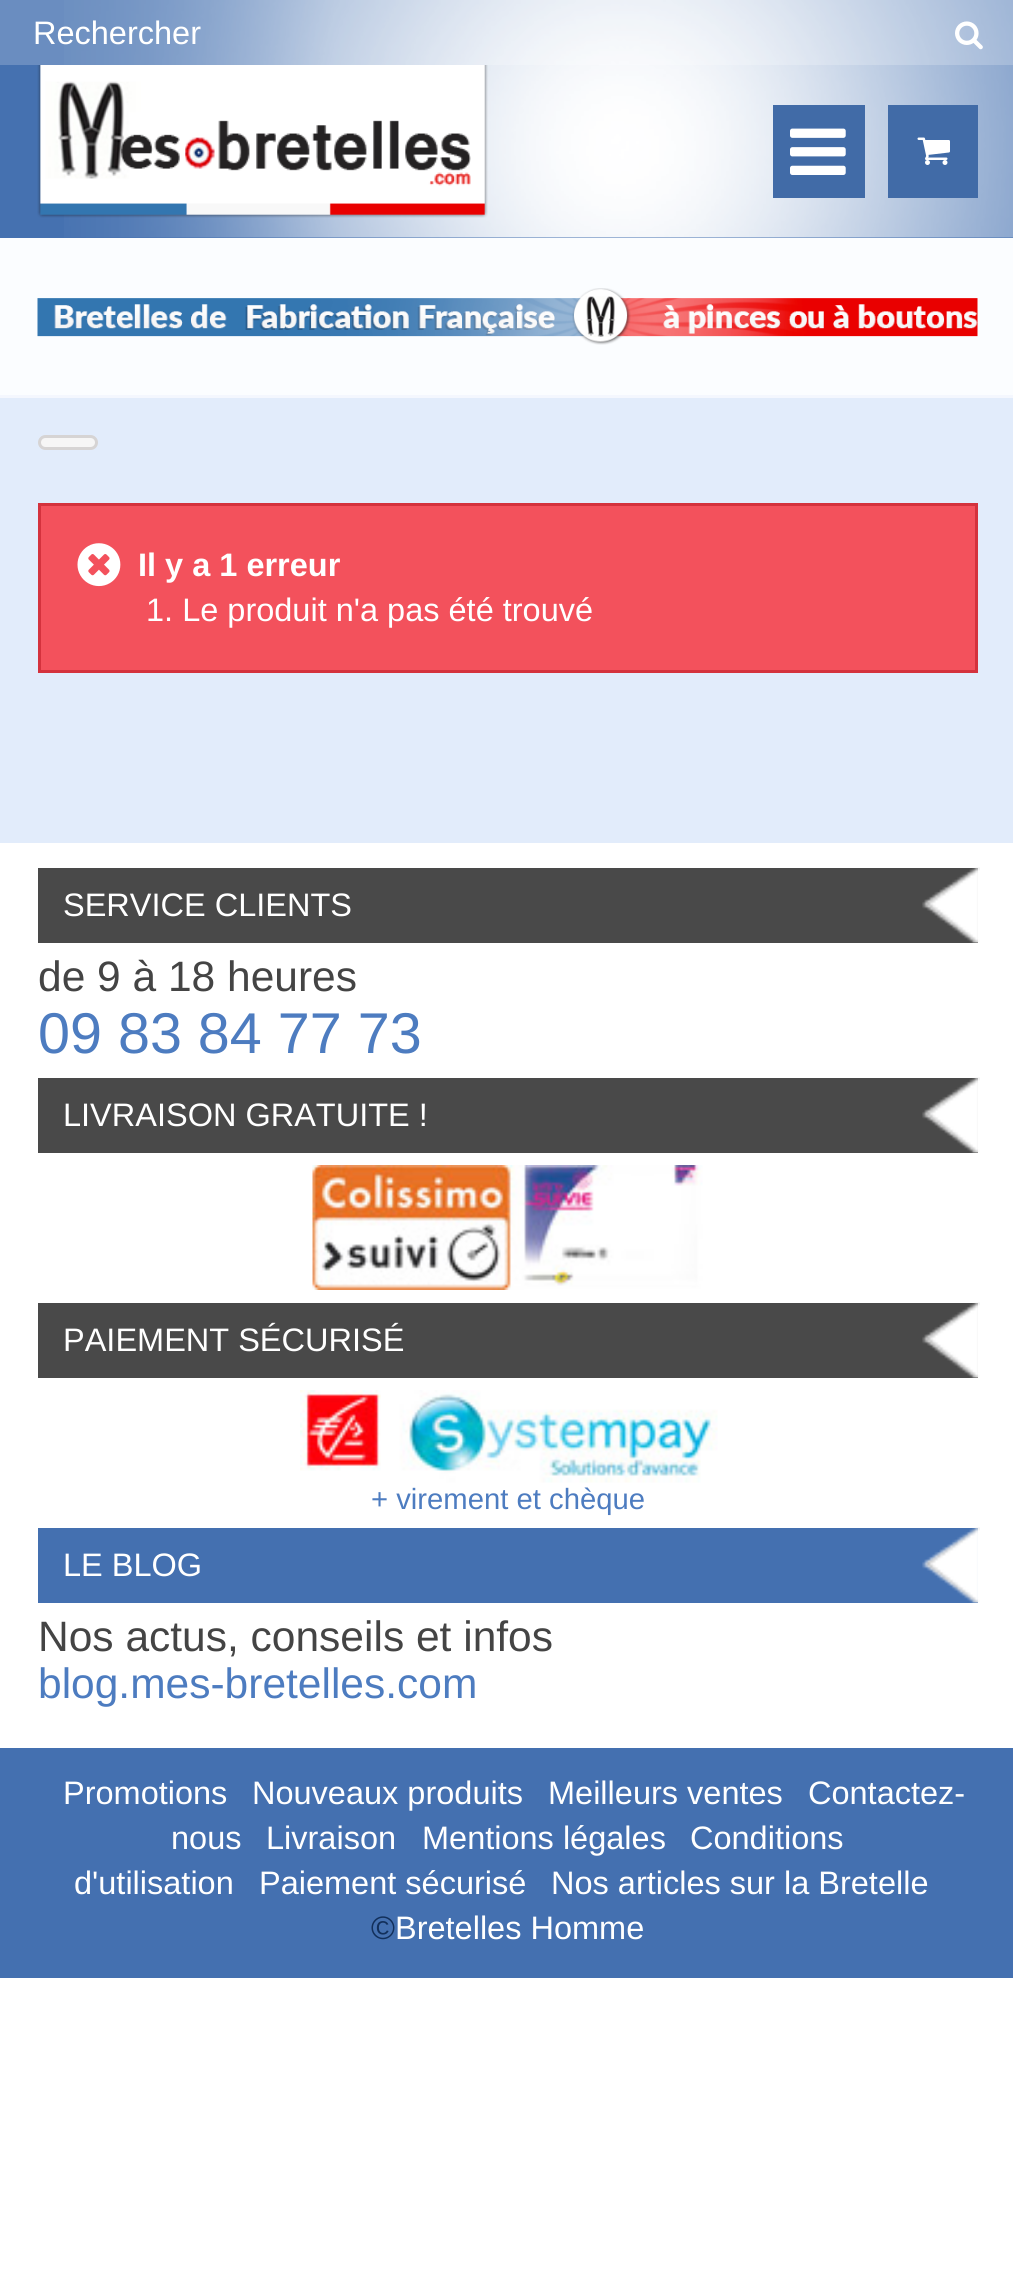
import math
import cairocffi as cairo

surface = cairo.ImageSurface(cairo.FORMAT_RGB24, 1013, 2294)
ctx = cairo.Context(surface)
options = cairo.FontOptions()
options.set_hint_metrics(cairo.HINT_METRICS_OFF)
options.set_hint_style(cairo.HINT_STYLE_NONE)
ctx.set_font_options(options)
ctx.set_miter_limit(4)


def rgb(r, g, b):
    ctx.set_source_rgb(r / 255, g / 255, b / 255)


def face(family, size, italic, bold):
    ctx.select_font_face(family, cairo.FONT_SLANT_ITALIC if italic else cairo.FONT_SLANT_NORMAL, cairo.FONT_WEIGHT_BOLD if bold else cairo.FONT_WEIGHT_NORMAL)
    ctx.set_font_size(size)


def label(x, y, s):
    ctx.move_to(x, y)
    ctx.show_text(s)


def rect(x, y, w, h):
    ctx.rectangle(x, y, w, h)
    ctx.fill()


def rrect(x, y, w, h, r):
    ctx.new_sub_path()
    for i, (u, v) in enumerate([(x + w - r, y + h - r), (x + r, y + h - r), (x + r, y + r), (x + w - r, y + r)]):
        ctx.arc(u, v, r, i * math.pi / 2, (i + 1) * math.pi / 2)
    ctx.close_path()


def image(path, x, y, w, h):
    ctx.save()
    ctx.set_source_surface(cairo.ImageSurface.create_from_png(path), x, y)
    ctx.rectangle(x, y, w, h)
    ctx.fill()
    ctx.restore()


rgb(255, 255, 255)
ctx.paint()
rgb(69, 113, 176)
rect(0, 0, 1013, 238)
image('image0.png', 64, 0, 949, 238)
ctx.set_source_rgba(1, 1, 1, 0.2)
rect(0, 0, 1013, 65)
face('Liberation Sans', 32.5, 0, 0)
rgb(255, 255, 255)
label(33, 44, 'Rechercher')
image('image1.png', 955, 21, 28, 29)
image('image2.png', 37, 65, 451, 153)
rgb(65, 107, 167)
rect(773, 105, 92, 93)
image('image3.png', 790, 128, 56, 47)
rect(888, 105, 90, 93)
image('image4.png', 917, 137, 33, 28)
rgb(251, 253, 255)
rect(0, 238, 1013, 157)
rgb(244, 247, 254)
rect(0, 395, 1013, 3)
image('image5.png', 37, 288, 941, 57)
rgb(226, 236, 251)
rect(0, 398, 1013, 445)
rgb(246, 246, 246)
rrect(39.5, 436.5, 57, 12, 6)
ctx.fill_preserve()
rgb(214, 212, 212)
ctx.set_line_width(3)
ctx.stroke()
rgb(243, 81, 92)
ctx.rectangle(39.5, 504.5, 937, 167)
ctx.fill_preserve()
rgb(212, 50, 61)
ctx.stroke()
image('image6.png', 77, 543, 44, 44)
face('Liberation Sans', 32.5, 0, 1)
rgb(255, 255, 255)
label(138, 576, 'Il y a 1 erreur')
face('Liberation Sans', 32.5, 0, 0)
label(146, 621, '1. Le produit n\'a pas été trouvé')
rgb(73, 73, 73)
rect(38, 868, 940, 75)
rgb(255, 255, 255)
label(63, 916, 'SERVICE CLIENTS')
image('image7.png', 922, 867, 58, 76)
face('Liberation Sans', 42.5, 0, 0)
rgb(68, 68, 68)
label(38, 991, 'de 9 à 18 heures')
face('Liberation Sans', 57.5, 0, 0)
rgb(77, 124, 192)
label(38, 1053, '09 83 84 77 73')
rgb(73, 73, 73)
rect(38, 1078, 940, 75)
face('Liberation Sans', 32.5, 0, 0)
rgb(255, 255, 255)
label(63, 1126, 'LIVRAISON GRATUITE !')
image('image7.png', 922, 1077, 58, 76)
image('image8.png', 312, 1165, 391, 125)
rgb(73, 73, 73)
rect(38, 1303, 940, 75)
rgb(255, 255, 255)
label(63, 1351, 'PAIEMENT SÉCURISÉ')
image('image7.png', 922, 1302, 58, 76)
image('image9.png', 300, 1390, 418, 93)
face('Liberation Sans', 29.25, 0, 0)
rgb(77, 124, 192)
label(371, 1509, '+ virement et chèque')
rgb(68, 112, 176)
rect(38, 1528, 940, 75)
face('Liberation Sans', 32.5, 0, 0)
rgb(255, 255, 255)
label(63, 1576, 'LE BLOG')
image('image10.png', 922, 1527, 58, 76)
face('Liberation Sans', 42.5, 0, 0)
rgb(68, 68, 68)
label(38, 1651, 'Nos actus, conseils et infos')
rgb(77, 124, 192)
label(38, 1698, 'blog.mes-bretelles.com')
rgb(68, 112, 176)
rect(0, 1748, 1013, 230)
face('Liberation Sans', 32.5, 0, 0)
rgb(255, 255, 255)
label(63, 1804, 'Promotions')
label(252, 1804, 'Nouveaux produits')
label(548, 1804, 'Meilleurs ventes')
label(808, 1804, 'Contactez-')
label(171, 1849, 'nous')
label(266, 1849, 'Livraison')
label(422, 1849, 'Mentions légales')
label(690, 1849, 'Conditions')
label(74, 1894, 'd\'utilisation')
label(259, 1894, 'Paiement sécurisé')
label(551, 1894, 'Nos articles sur la Bretelle')
rgb(18, 47, 90)
label(371, 1939, '©')
rgb(255, 255, 255)
label(395, 1939, 'Bretelles Homme')
surface.write_to_png('render.png')
